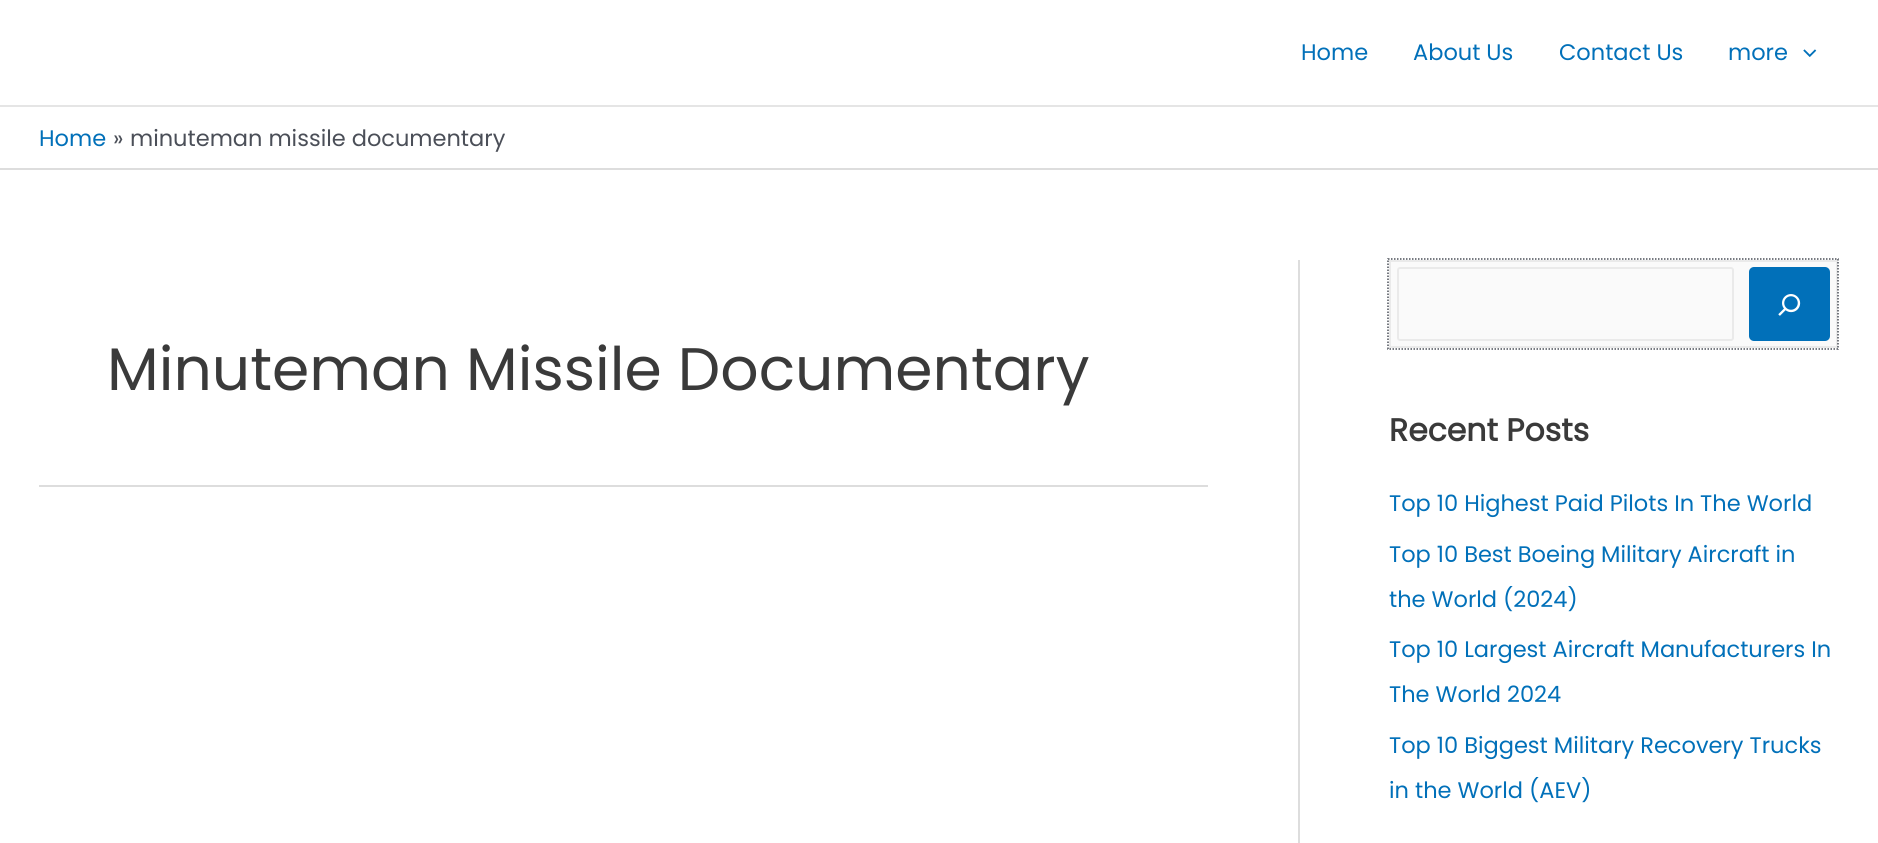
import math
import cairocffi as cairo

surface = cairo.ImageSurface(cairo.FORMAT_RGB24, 1878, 843)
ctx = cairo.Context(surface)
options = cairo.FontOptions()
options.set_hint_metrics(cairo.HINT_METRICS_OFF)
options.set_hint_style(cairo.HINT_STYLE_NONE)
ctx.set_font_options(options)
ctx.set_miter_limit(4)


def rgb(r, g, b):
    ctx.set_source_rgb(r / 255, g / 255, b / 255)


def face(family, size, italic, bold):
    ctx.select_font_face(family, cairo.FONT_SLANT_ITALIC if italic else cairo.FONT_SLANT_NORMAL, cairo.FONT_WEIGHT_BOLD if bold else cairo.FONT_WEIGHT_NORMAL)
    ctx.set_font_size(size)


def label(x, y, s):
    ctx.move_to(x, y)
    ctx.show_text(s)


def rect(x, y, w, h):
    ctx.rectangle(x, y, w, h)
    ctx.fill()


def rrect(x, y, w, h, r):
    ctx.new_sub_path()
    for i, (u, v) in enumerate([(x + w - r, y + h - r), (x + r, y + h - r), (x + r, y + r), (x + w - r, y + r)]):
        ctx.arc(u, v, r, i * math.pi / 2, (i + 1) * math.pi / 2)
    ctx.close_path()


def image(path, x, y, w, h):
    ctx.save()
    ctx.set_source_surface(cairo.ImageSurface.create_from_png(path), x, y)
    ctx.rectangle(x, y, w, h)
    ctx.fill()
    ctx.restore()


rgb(255, 255, 255)
ctx.paint()
rgb(229, 229, 229)
rect(0, 105, 1878, 2)
face('Poppins', 22.5, 0, 0)
rgb(1, 112, 185)
label(1301, 60, 'Home')
label(1413, 60, 'About Us')
label(1559, 60, 'Contact Us')
label(1728, 60, 'more')
image('image0.png', 1803, 49, 14, 8)
rgb(221, 221, 221)
rect(0, 168, 1878, 2)
rgb(1, 112, 185)
label(39, 146, 'Home')
rgb(75, 79, 88)
label(113, 146, '»')
label(130, 146, 'minuteman missile documentary')
rgb(221, 221, 221)
rect(1298, 260, 2, 583)
rect(39, 485, 1169, 2)
face('Poppins', 60, 0, 0)
rgb(58, 58, 58)
label(107, 390, 'Minuteman Missile Documentary')
rgb(250, 250, 250)
ctx.rectangle(1390, 261, 447, 86)
ctx.fill_preserve()
rgb(234, 234, 234)
ctx.stroke()
rrect(1398, 268, 335, 72, 2)
ctx.stroke()
rgb(1, 112, 185)
rrect(1749, 267, 81, 74, 5)
ctx.fill()
ctx.new_path()
ctx.move_to(1388, 259)
ctx.line_to(1838, 259)
ctx.line_to(1838, 349)
ctx.line_to(1388, 349)
ctx.close_path()
rgb(75, 79, 88)
ctx.set_line_width(1.5)
ctx.set_dash([1.5, 1.5])
ctx.stroke()
image('image1.png', 1778, 294, 23, 22)
face('Poppins', 31.5, 0, 1)
rgb(58, 58, 58)
label(1389, 441, 'Recent Posts')
face('Poppins', 22.5, 0, 0)
rgb(1, 112, 185)
label(1389, 511, 'Top 10 Highest Paid Pilots In The World')
label(1389, 562, 'Top 10 Best Boeing Military Aircraft in')
label(1389, 607, 'the World (2024)')
label(1389, 657, 'Top 10 Largest Aircraft Manufacturers In')
label(1389, 702, 'The World 2024')
label(1389, 753, 'Top 10 Biggest Military Recovery Trucks')
label(1389, 798, 'in the World (AEV)')
surface.write_to_png('render.png')
